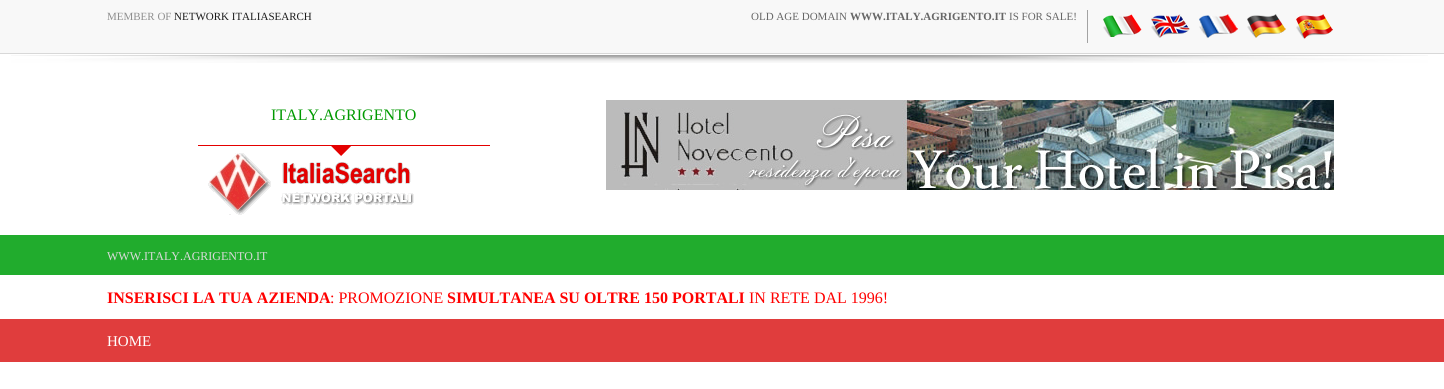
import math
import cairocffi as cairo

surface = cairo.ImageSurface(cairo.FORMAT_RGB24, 1444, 389)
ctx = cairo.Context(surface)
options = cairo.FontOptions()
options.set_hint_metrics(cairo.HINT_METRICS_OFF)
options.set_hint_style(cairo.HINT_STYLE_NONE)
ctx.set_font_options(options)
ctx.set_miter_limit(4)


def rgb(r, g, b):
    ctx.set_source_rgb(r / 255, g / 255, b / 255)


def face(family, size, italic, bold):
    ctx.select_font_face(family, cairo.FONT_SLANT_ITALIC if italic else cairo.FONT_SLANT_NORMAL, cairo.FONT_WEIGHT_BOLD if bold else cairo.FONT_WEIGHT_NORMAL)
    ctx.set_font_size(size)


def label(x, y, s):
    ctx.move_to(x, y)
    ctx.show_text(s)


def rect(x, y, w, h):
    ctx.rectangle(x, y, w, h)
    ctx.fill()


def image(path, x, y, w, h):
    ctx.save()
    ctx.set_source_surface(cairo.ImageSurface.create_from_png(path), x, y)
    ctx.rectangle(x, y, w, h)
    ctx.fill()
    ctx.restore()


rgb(255, 255, 255)
ctx.paint()
rgb(248, 248, 248)
rect(0, 0, 1444, 53)
rgb(216, 216, 216)
rect(0, 53, 1444, 1)
face('Liberation Serif', 11, 0, 0)
rgb(143, 143, 143)
label(107, 20, 'MEMBER OF')
rgb(27, 27, 27)
label(174, 20, 'NETWORK ITALIASEARCH')
rgb(102, 102, 102)
label(751, 20, 'OLD AGE DOMAIN')
face('Liberation Serif', 11, 0, 1)
label(850, 20, 'WWW.ITALY.AGRIGENTO.IT')
face('Liberation Serif', 11, 0, 0)
label(1009, 20, 'IS FOR SALE!')
rgb(163, 163, 163)
rect(1087, 10, 1, 33)
image('image0.png', 1103, 14, 39, 23)
image('image1.png', 1151, 14, 39, 24)
image('image2.png', 1199, 14, 39, 24)
image('image3.png', 1247, 14, 39, 24)
image('image4.png', 1296, 14, 37, 25)
image('image5.png', 11, 55, 1417, 8)
face('Liberation Serif', 16, 0, 0)
rgb(0, 153, 0)
label(271, 120, 'ITALY.AGRIGENTO')
image('image6.png', 198, 145, 292, 70)
image('image7.png', 606, 100, 728, 90)
rgb(33, 172, 45)
rect(0, 235, 1444, 40)
face('Liberation Serif', 12, 0, 0)
rgb(218, 218, 218)
label(107, 260, 'WWW.ITALY.AGRIGENTO.IT')
face('Liberation Serif', 16, 0, 1)
rgb(255, 0, 0)
label(107, 303, 'INSERISCI LA TUA AZIENDA')
face('Liberation Serif', 16, 0, 0)
label(330, 303, ': PROMOZIONE')
face('Liberation Serif', 16, 0, 1)
label(447, 303, 'SIMULTANEA SU OLTRE 150 PORTALI')
face('Liberation Serif', 16, 0, 0)
label(749, 303, 'IN RETE DAL 1996!')
rgb(224, 61, 61)
rect(0, 319, 1444, 43)
face('Liberation Serif', 15, 0, 0)
rgb(255, 255, 255)
label(107, 346, 'HOME')
surface.write_to_png('render.png')
